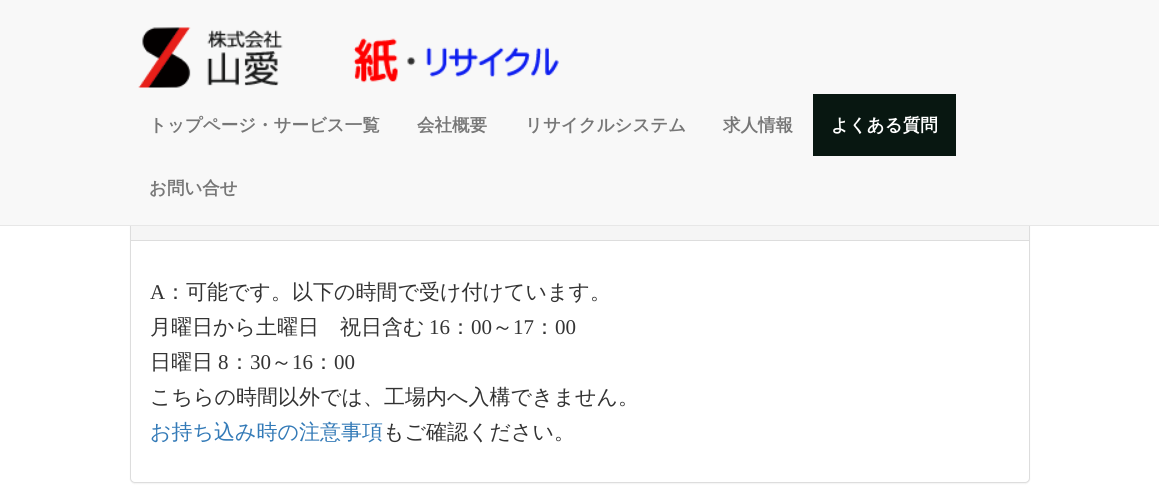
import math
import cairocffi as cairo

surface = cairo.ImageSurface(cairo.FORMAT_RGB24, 1159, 504)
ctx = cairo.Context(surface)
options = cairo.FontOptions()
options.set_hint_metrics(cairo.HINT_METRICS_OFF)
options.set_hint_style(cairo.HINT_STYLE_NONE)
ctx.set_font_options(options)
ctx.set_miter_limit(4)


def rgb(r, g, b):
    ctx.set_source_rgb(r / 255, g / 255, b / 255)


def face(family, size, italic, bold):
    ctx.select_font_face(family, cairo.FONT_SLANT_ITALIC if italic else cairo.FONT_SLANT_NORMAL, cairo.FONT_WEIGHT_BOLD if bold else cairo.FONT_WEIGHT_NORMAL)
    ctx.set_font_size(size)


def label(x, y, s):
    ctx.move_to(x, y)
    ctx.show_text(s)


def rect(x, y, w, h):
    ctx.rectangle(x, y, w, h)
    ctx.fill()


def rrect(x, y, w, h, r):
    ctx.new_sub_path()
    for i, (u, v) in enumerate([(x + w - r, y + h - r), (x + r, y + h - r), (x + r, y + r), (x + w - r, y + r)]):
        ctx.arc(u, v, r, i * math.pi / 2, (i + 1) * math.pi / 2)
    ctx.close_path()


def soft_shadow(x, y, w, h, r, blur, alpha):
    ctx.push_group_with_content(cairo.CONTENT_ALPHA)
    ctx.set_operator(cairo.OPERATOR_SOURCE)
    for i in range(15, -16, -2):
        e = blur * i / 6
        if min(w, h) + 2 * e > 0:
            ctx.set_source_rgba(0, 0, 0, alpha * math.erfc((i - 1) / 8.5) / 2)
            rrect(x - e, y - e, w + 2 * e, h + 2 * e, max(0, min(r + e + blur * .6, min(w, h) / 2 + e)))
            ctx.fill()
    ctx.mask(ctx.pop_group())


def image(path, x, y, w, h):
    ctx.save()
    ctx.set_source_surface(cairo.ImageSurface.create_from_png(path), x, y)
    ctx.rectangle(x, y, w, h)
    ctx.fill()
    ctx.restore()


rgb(255, 255, 255)
ctx.paint()
rgb(0, 0, 0)
soft_shadow(130, 165, 900, 319, 5, 0.5, 0.05)
rgb(255, 255, 255)
rrect(130.5, 164.5, 899, 318, 4.5)
ctx.fill_preserve()
rgb(221, 221, 221)
ctx.set_line_width(1)
ctx.stroke()
rgb(248, 248, 248)
rect(0, 0, 1159, 225)
rgb(231, 231, 231)
rect(0, 225, 1159, 1)
image('image0.png', 138, 27, 421, 61)
face('WenQuanYi Zen Hei', 17.5, 0, 1)
rgb(119, 119, 119)
label(149, 131, 'トップページ・サービス一覧')
label(417, 131, '会社概要')
label(525, 131, 'リサイクルシステム')
label(723, 131, '求人情報')
rgb(8, 23, 17)
rect(813, 94, 143, 62)
rgb(255, 255, 255)
label(831, 131, 'よくある質問')
rgb(119, 119, 119)
label(149, 194, 'お問い合せ')
rgb(245, 245, 245)
rect(131, 226, 898, 14)
rgb(221, 221, 221)
rect(131, 240, 898, 1)
face('Liberation Serif', 21, 0, 0)
rgb(51, 51, 51)
label(150, 299, 'A')
face('WenQuanYi Zen Hei Medium', 21, 0, 0)
label(165, 299, '：可能です。以下の時間で受け付けています。')
label(150, 334, '月曜日から土曜日　祝日含む')
face('Liberation Serif', 21, 0, 0)
label(429, 334, '16')
face('WenQuanYi Zen Hei Medium', 21, 0, 0)
label(450, 334, '：')
face('Liberation Serif', 21, 0, 0)
label(471, 334, '00')
face('WenQuanYi Zen Hei Medium', 21, 0, 0)
label(492, 334, '～')
face('Liberation Serif', 21, 0, 0)
label(513, 334, '17')
face('WenQuanYi Zen Hei Medium', 21, 0, 0)
label(534, 334, '：')
face('Liberation Serif', 21, 0, 0)
label(555, 334, '00')
face('WenQuanYi Zen Hei Medium', 21, 0, 0)
label(150, 369, '日曜日')
face('Liberation Serif', 21, 0, 0)
label(218, 369, '8')
face('WenQuanYi Zen Hei Medium', 21, 0, 0)
label(229, 369, '：')
face('Liberation Serif', 21, 0, 0)
label(250, 369, '30')
face('WenQuanYi Zen Hei Medium', 21, 0, 0)
label(271, 369, '～')
face('Liberation Serif', 21, 0, 0)
label(292, 369, '16')
face('WenQuanYi Zen Hei Medium', 21, 0, 0)
label(313, 369, '：')
face('Liberation Serif', 21, 0, 0)
label(334, 369, '00')
face('WenQuanYi Zen Hei Medium', 21, 0, 0)
label(150, 404, 'こちらの時間以外では、工場内へ入構できません。')
rgb(51, 122, 183)
label(150, 439, 'お持ち込み時の注意事項')
rgb(51, 51, 51)
label(383, 439, 'もご確認ください。')
surface.write_to_png('render.png')
